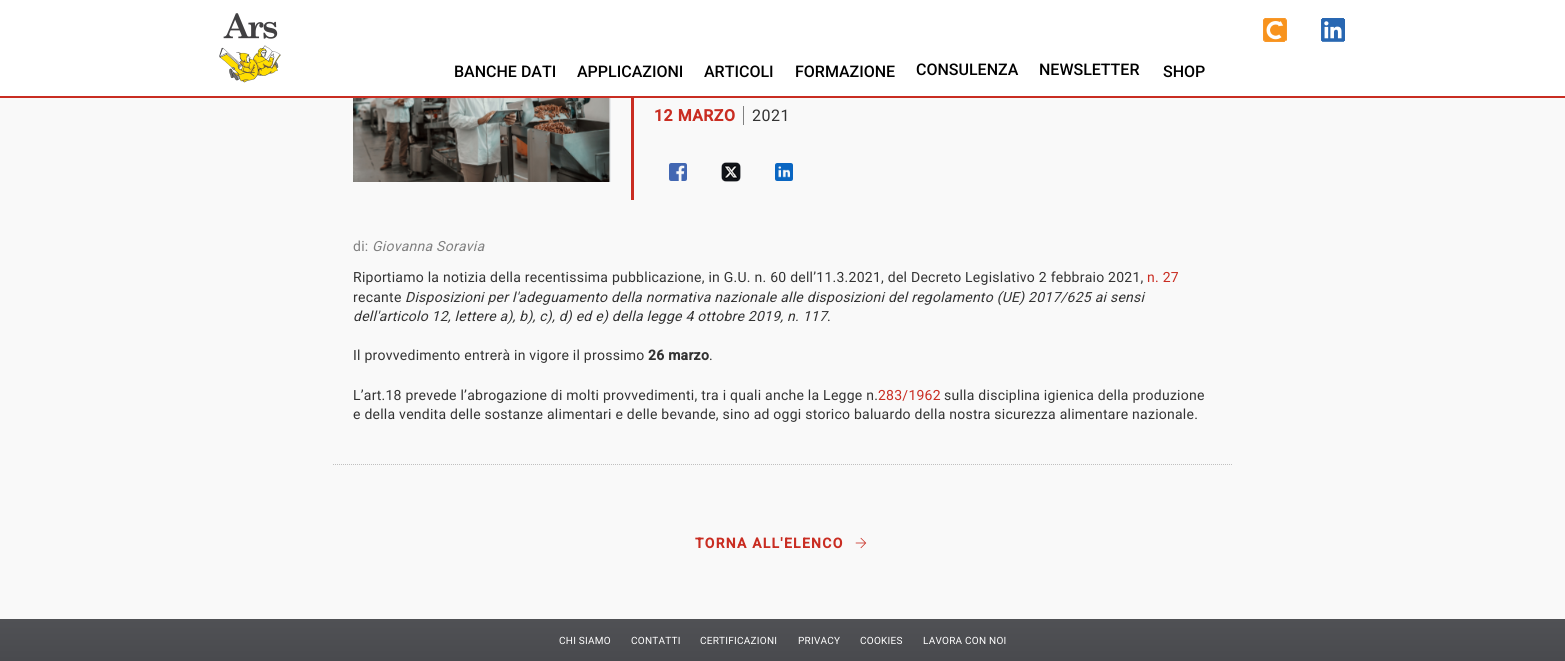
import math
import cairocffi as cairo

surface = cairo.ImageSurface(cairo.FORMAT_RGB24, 1565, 661)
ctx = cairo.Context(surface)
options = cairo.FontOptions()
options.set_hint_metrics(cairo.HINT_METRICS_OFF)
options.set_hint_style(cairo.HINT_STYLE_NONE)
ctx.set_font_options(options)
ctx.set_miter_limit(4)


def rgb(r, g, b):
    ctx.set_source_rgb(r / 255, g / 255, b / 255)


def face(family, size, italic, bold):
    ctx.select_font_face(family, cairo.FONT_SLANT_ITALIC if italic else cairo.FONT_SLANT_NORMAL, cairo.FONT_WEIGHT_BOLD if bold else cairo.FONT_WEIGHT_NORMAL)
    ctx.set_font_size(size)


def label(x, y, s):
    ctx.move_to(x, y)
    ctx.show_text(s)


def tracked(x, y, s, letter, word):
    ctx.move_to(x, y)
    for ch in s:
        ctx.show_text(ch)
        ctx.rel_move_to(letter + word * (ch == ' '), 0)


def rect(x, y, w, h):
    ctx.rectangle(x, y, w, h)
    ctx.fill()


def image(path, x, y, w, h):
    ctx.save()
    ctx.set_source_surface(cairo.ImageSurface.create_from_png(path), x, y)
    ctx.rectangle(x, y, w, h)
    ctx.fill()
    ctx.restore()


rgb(249, 249, 249)
ctx.paint()
rgb(255, 255, 255)
rect(0, 0, 1565, 96)
rgb(201, 45, 34)
rect(0, 96, 1565, 2)
image('image0.png', 219, 13, 62, 70)
image('image1.png', 1263, 18, 24, 24)
image('image2.png', 1321, 18, 24, 24)
face('Roboto Medium', 16, 0, 0)
rgb(0, 0, 0)
label(454, 77, 'BANCHE DATI')
label(577, 77, 'APPLICAZIONI')
label(704, 77, 'ARTICOLI')
label(795, 77, 'FORMAZIONE')
label(916, 75, 'CONSULENZA')
label(1039, 75, 'NEWSLETTER')
label(1163, 77, 'SHOP')
image('image3.png', 353, 98, 258, 84)
rgb(201, 45, 34)
rect(631, 98, 3, 102)
face('Roboto', 16, 0, 1)
tracked(654, 121, '12 MARZO', 0.5, 0)
rgb(128, 128, 128)
rect(743, 106, 1, 19)
face('Roboto', 16, 0, 0)
rgb(51, 51, 51)
tracked(752, 121, '2021', 0.5, 0)
image('image4.png', 669, 163, 18, 18)
image('image5.png', 721, 162, 20, 20)
image('image6.png', 775, 163, 18, 18)
ctx.new_path()
ctx.move_to(333, 464.5)
ctx.line_to(1233, 464.5)
rgb(192, 192, 192)
ctx.set_line_width(1)
ctx.set_dash([1, 1])
ctx.stroke()
face('Roboto', 14, 0, 0)
rgb(128, 128, 128)
tracked(353, 251, 'di:', 0.25, 0)
face('Roboto', 14, 1, 0)
tracked(372, 251, 'Giovanna Soravia', 0.25, 0)
face('Roboto', 14, 0, 0)
rgb(51, 51, 51)
tracked(353, 282, 'Riportiamo la notizia della recentissima pubblicazione, in G.U. n. 60 dell’11.3.2021, del Decreto Legislativo 2 febbraio 2021,', 0.25, 0)
rgb(201, 45, 34)
tracked(1147, 282, 'n. 27', 0.25, 0)
rgb(51, 51, 51)
tracked(353, 302, 'recante', 0.25, 0)
face('Roboto', 14, 1, 0)
tracked(405, 302, 'Disposizioni per l\'adeguamento della normativa nazionale alle disposizioni del regolamento (UE) 2017/625 ai sensi', 0.25, 0)
tracked(353, 321, 'dell\'articolo 12, lettere a), b), c), d) ed e) della legge 4 ottobre 2019, n. 117', 0.25, 0)
face('Roboto', 14, 0, 0)
tracked(827, 321, '.', 0.25, 0)
tracked(353, 360, 'Il provvedimento entrerà in vigore il prossimo', 0.25, 0)
face('Roboto', 14, 0, 1)
tracked(648, 360, '26 marzo', 0.25, 0)
face('Roboto', 14, 0, 0)
tracked(709, 360, '.', 0.25, 0)
tracked(353, 400, 'L’art.18 prevede l’abrogazione di molti provvedimenti, tra i quali anche la Legge n.', 0.25, 0)
rgb(201, 45, 34)
tracked(878, 400, '283/1962', 0.25, 0)
rgb(51, 51, 51)
tracked(944, 400, 'sulla disciplina igienica della produzione', 0.25, 0)
tracked(353, 419, 'e della vendita delle sostanze alimentari e delle bevande, sino ad oggi storico baluardo della nostra sicurezza alimentare nazionale.', 0.25, 0)
face('Roboto', 14, 0, 1)
rgb(201, 45, 34)
tracked(695, 548, 'TORNA ALL\'ELENCO', 1.25, 0)
image('image7.png', 855, 537, 12, 12)
gradient = cairo.LinearGradient(783, 619, 783, 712)
gradient.add_color_stop_rgba(0, 0.314, 0.318, 0.333, 1)
gradient.add_color_stop_rgba(1, 0.251, 0.255, 0.271, 1)
ctx.set_source(gradient)
rect(0, 619, 1565, 42)
face('Roboto', 10, 0, 0)
rgb(255, 255, 255)
tracked(559, 644, 'CHI SIAMO', 0.25, 0)
tracked(631, 644, 'CONTATTI', 0.25, 0)
tracked(700, 644, 'CERTIFICAZIONI', 0.25, 0)
tracked(798, 644, 'PRIVACY', 0.25, 0)
tracked(860, 644, 'COOKIES', 0.25, 0)
tracked(923, 644, 'LAVORA CON NOI', 0.25, 0)
surface.write_to_png('render.png')
